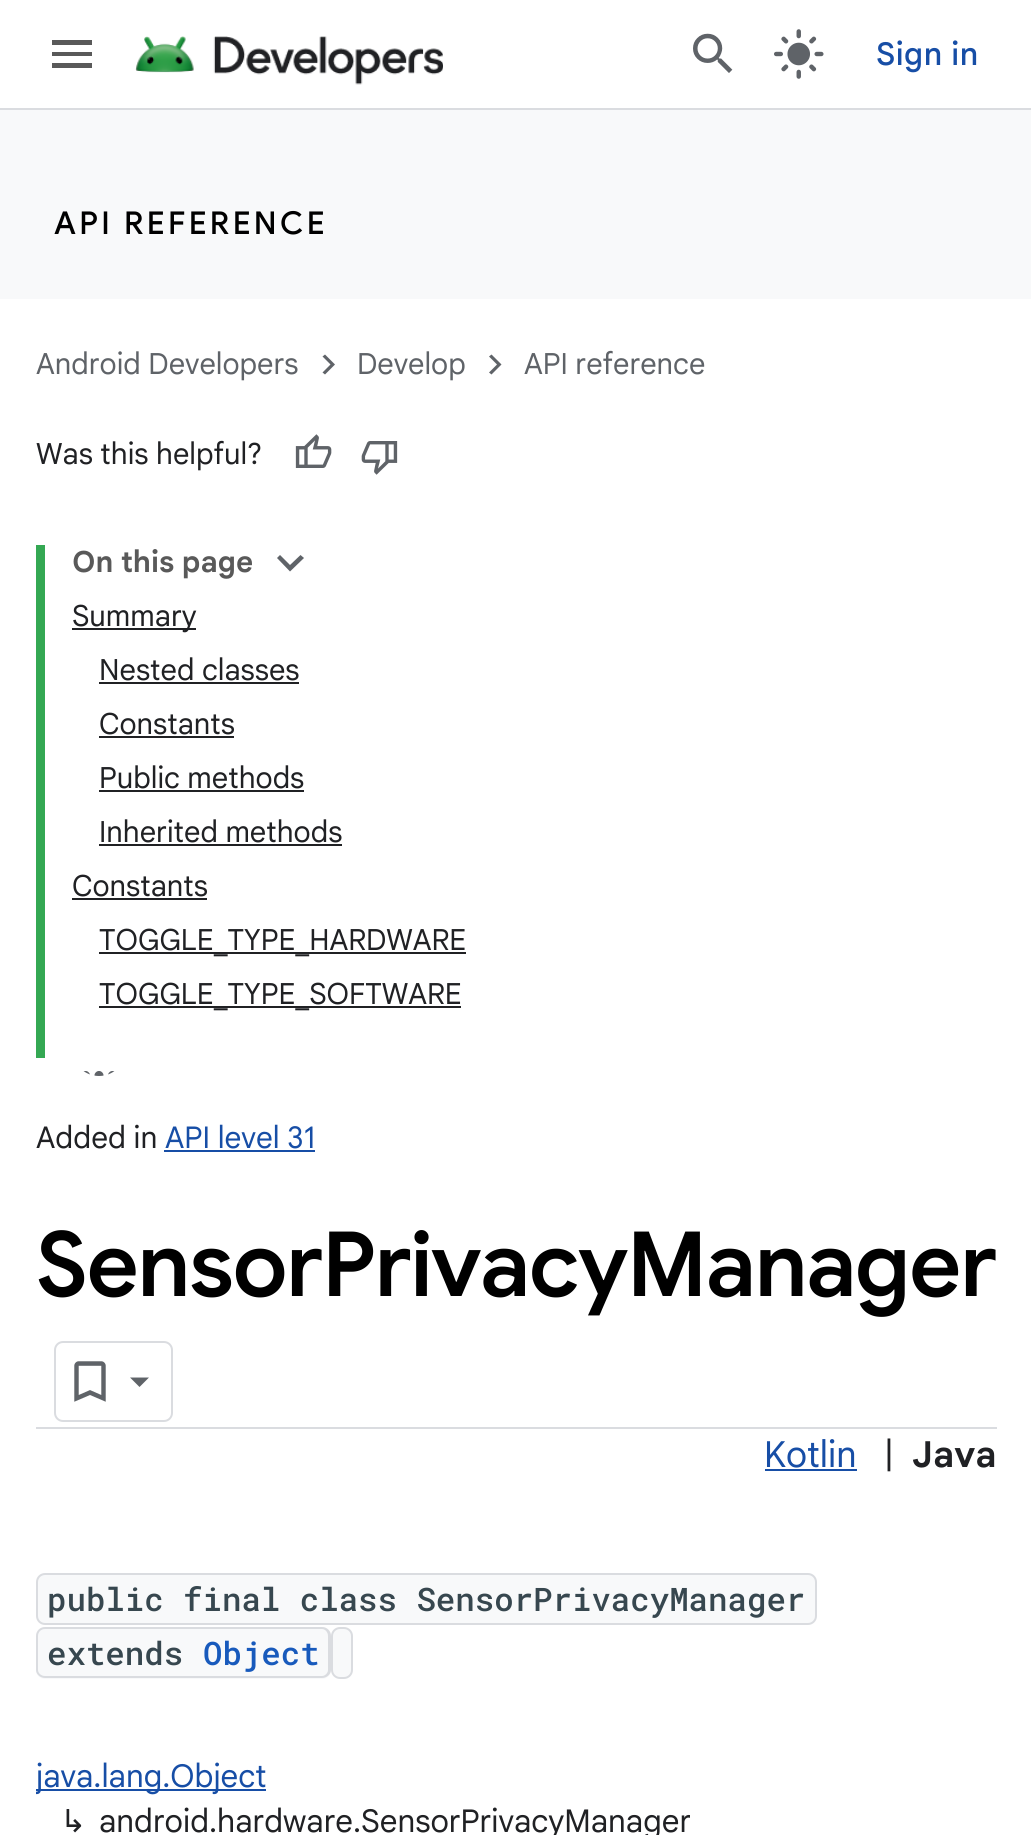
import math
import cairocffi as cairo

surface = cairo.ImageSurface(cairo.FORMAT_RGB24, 1031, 1835)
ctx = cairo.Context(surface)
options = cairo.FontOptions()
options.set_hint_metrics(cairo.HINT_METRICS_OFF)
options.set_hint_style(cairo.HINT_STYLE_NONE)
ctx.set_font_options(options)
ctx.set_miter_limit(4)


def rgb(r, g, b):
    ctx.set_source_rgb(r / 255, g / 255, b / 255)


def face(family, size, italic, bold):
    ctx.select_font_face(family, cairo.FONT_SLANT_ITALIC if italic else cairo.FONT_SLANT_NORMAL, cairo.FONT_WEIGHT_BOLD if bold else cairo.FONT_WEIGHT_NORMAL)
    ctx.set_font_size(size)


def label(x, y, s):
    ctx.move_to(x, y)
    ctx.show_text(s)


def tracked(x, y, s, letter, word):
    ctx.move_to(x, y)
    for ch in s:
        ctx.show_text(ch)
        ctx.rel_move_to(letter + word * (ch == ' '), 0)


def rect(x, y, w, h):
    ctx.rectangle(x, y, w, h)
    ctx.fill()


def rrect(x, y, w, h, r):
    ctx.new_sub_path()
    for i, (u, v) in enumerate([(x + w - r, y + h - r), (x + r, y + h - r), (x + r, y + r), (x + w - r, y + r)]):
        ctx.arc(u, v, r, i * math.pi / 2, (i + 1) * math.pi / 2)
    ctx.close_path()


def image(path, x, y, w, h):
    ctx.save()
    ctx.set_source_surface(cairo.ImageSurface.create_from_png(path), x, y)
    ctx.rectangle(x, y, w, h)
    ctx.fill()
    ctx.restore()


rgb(255, 255, 255)
ctx.paint()
rgb(218, 220, 224)
rect(0, 108, 1031, 2)
rgb(89, 89, 89)
ctx.new_path()
ctx.move_to(52, 40)
ctx.line_to(92, 40)
ctx.line_to(92, 45)
ctx.line_to(52, 45)
ctx.close_path()
ctx.move_to(52, 56)
ctx.line_to(52, 52)
ctx.line_to(92, 52)
ctx.line_to(92, 56)
ctx.close_path()
ctx.move_to(52, 68)
ctx.line_to(52, 63)
ctx.line_to(92, 63)
ctx.line_to(92, 68)
ctx.close_path()
ctx.fill()
image('image0.png', 135, 36, 308, 49)
image('image1.png', 693, 33, 40, 40)
image('image2.png', 774, 29, 50, 50)
face('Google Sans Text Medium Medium', 31.5, 0, 0)
rgb(23, 78, 166)
tracked(876, 65, 'Sign in', 0.5, 0)
rgb(248, 249, 250)
rect(0, 110, 1031, 189)
face('Google Sans Medium', 31.5, 0, 0)
rgb(0, 0, 0)
tracked(54, 234, 'API REFERENCE', 3.4, 0)
face('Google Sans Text', 29.25, 0, 0)
rgb(95, 99, 104)
label(36, 374, 'Android Developers')
ctx.new_path()
ctx.move_to(325, 354.5)
ctx.line_to(335, 364.5)
ctx.line_to(325, 374.5)
ctx.line_to(322.5, 372.5)
ctx.line_to(330.5, 364.5)
ctx.line_to(322.5, 356.5)
ctx.close_path()
ctx.fill()
label(357, 374, 'Develop')
ctx.new_path()
ctx.move_to(491.5, 354.5)
ctx.line_to(501.5, 364.5)
ctx.line_to(491.5, 374.5)
ctx.line_to(489, 372.5)
ctx.line_to(497, 364.5)
ctx.line_to(489, 356.5)
ctx.close_path()
ctx.fill()
label(524, 374, 'API reference')
rgb(32, 33, 36)
label(36, 464, 'Was this helpful?')
image('image3.png', 295, 434, 37, 34)
image('image4.png', 361, 441, 37, 34)
rgb(52, 168, 83)
rect(36, 545, 9, 513)
face('Google Sans Text', 29.25, 0, 1)
rgb(89, 89, 89)
label(72, 572, 'On this page')
rgb(95, 99, 104)
ctx.new_path()
ctx.move_to(300.5, 555)
ctx.line_to(304, 558)
ctx.line_to(290, 571.5)
ctx.line_to(277, 558)
ctx.line_to(280, 555)
ctx.line_to(290, 565)
ctx.close_path()
ctx.fill()
rgb(32, 33, 36)
rect(72, 628, 124, 2)
face('Google Sans Text', 29.25, 0, 0)
label(72, 626, 'Summary')
label(99, 680, 'Nested classes')
rect(99, 682, 200, 2)
label(99, 734, 'Constants')
rect(99, 736, 135, 2)
label(99, 788, 'Public methods')
rect(99, 790, 205, 2)
label(99, 842, 'Inherited methods')
rect(99, 844, 243, 2)
label(72, 896, 'Constants')
rect(72, 898, 135, 2)
rect(99, 952, 367, 2)
label(99, 950, 'TOGGLE_TYPE_HARDWARE')
rect(99, 1006, 362, 2)
label(99, 1004, 'TOGGLE_TYPE_SOFTWARE')
image('image5.png', 83, 1071, 32, 5)
face('Google Sans Text', 30, 0, 0)
label(36, 1148, 'Added in')
rgb(23, 78, 166)
label(165, 1148, 'API level 31')
rect(164, 1150, 151, 2)
face('Google Sans SemiBold', 90, 0, 0)
rgb(0, 0, 0)
tracked(36, 1296, 'SensorPrivacyManager', -1.1, 0)
rrect(55, 1342, 117, 79, 8)
rgb(218, 220, 224)
ctx.stroke()
image('image6.png', 74, 1361, 32, 41)
rgb(95, 99, 104)
ctx.new_path()
ctx.move_to(130, 1377.5)
ctx.line_to(149, 1377.5)
ctx.line_to(139.5, 1387)
ctx.close_path()
ctx.fill()
rgb(218, 220, 224)
rect(36, 1427, 961, 2)
face('Google Sans Text', 36, 0, 0)
rgb(23, 78, 166)
label(764, 1467, 'Kotlin')
rect(765, 1469, 92, 2)
rgb(32, 33, 36)
label(884, 1467, '|')
face('Google Sans Text', 36, 0, 1)
label(912, 1467, 'Java')
rgb(248, 249, 250)
rrect(37, 1574, 779, 50, 8)
ctx.fill_preserve()
rgb(218, 220, 224)
ctx.stroke()
face('Roboto Mono Medium', 32.4, 0, 0)
rgb(55, 71, 79)
label(47, 1611, 'public final class SensorPrivacyManager')
rgb(248, 249, 250)
ctx.new_path()
ctx.move_to(45, 1627)
ctx.line_to(203, 1627)
ctx.line_to(203, 1679)
ctx.line_to(45, 1679)
ctx.curve_to(40, 1679, 36, 1675, 36, 1670)
ctx.line_to(36, 1636)
ctx.curve_to(36, 1631, 40, 1627, 45, 1627)
ctx.close_path()
ctx.fill()
rgb(218, 220, 224)
ctx.set_fill_rule(cairo.FILL_RULE_EVEN_ODD)
ctx.new_path()
ctx.move_to(45, 1627)
ctx.line_to(202, 1627)
ctx.line_to(202, 1678)
ctx.line_to(45, 1678)
ctx.curve_to(40, 1678, 36, 1674, 36, 1670)
ctx.line_to(36, 1636)
ctx.curve_to(36, 1631, 40, 1627, 45, 1627)
ctx.close_path()
ctx.move_to(45, 1629)
ctx.line_to(202, 1629)
ctx.line_to(202, 1676)
ctx.line_to(45, 1676)
ctx.curve_to(41, 1676, 38, 1673, 38, 1670)
ctx.line_to(38, 1636)
ctx.curve_to(38, 1632, 41, 1629, 45, 1629)
ctx.close_path()
ctx.fill()
rgb(55, 71, 79)
label(47, 1665, 'extends')
rgb(248, 249, 250)
ctx.new_path()
ctx.move_to(203, 1627)
ctx.line_to(322, 1627)
ctx.curve_to(327, 1627, 331, 1631, 331, 1636)
ctx.line_to(331, 1670)
ctx.curve_to(331, 1675, 327, 1679, 322, 1679)
ctx.line_to(203, 1679)
ctx.close_path()
ctx.fill()
rgb(218, 220, 224)
ctx.new_path()
ctx.move_to(202, 1627)
ctx.line_to(322, 1627)
ctx.curve_to(327, 1627, 331, 1631, 331, 1636)
ctx.line_to(331, 1670)
ctx.curve_to(331, 1674, 327, 1678, 322, 1678)
ctx.line_to(202, 1678)
ctx.close_path()
ctx.move_to(202, 1629)
ctx.line_to(322, 1629)
ctx.curve_to(325, 1629, 328, 1632, 328, 1636)
ctx.line_to(328, 1670)
ctx.curve_to(328, 1673, 325, 1676, 322, 1676)
ctx.line_to(202, 1676)
ctx.close_path()
ctx.fill()
rgb(24, 90, 188)
label(203, 1665, 'Object')
rgb(248, 249, 250)
rrect(332, 1628, 20, 50, 8)
ctx.fill_preserve()
rgb(218, 220, 224)
ctx.stroke()
rgb(23, 78, 166)
rect(36, 1789, 230, 2)
ctx.save()
ctx.set_fill_rule(cairo.FILL_RULE_WINDING)
ctx.rectangle(36, 1753, 961, 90)
ctx.clip()
face('Google Sans Text', 31.5, 0, 0)
label(36, 1787, 'java.lang.Object')
ctx.restore()
face('DejaVu Sans', 31.5, 0, 0)
rgb(32, 33, 36)
label(60, 1832, '↳')
face('Google Sans Text', 31.5, 0, 0)
label(99, 1832, 'android.hardware.SensorPrivacyManager')
surface.write_to_png('render.png')
